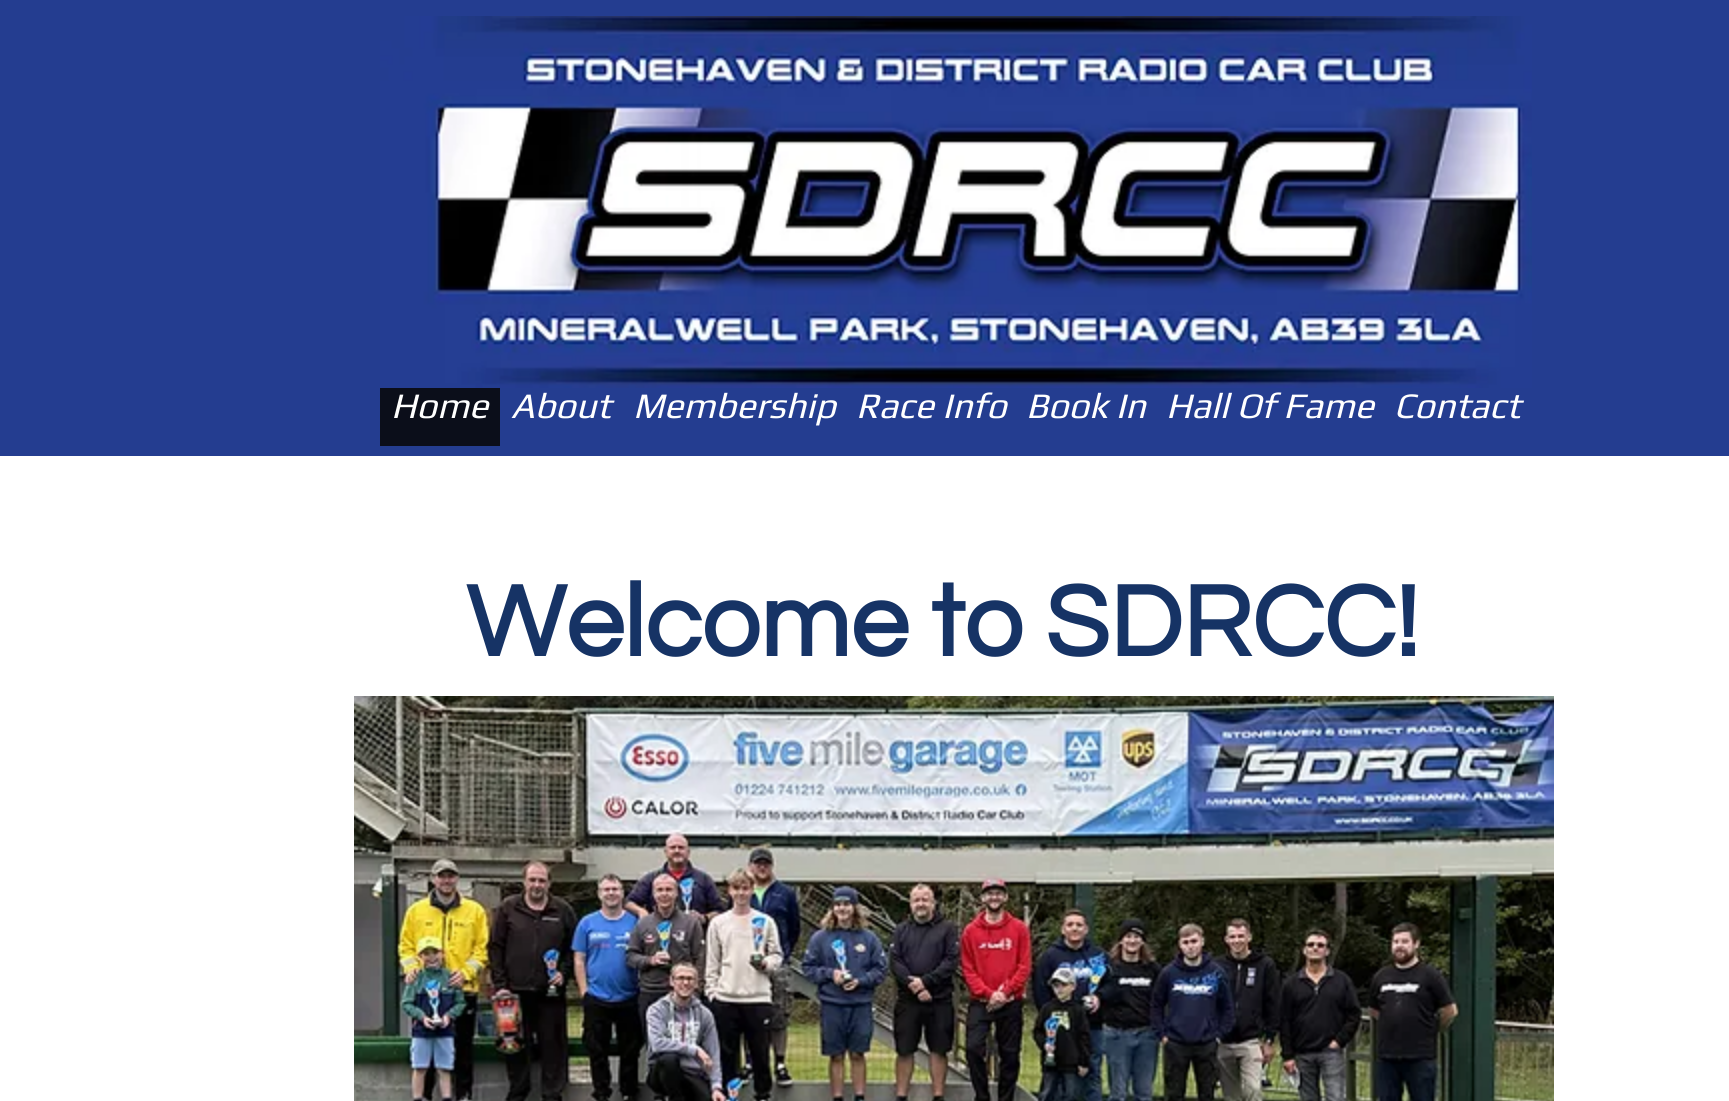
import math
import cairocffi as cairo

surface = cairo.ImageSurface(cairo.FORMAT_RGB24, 1729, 1101)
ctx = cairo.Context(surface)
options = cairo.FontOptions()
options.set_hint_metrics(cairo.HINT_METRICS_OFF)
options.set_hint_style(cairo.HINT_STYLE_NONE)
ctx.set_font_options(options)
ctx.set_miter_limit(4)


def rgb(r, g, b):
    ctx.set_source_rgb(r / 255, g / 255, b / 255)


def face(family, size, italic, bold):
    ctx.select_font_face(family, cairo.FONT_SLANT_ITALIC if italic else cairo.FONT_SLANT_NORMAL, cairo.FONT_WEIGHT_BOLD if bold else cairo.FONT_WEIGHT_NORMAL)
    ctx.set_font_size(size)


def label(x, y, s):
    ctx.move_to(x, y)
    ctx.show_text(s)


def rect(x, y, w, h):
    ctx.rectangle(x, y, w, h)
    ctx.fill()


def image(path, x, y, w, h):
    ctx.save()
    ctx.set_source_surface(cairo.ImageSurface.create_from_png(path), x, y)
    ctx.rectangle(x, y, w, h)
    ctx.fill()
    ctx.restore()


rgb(255, 255, 255)
ctx.paint()
rgb(36, 61, 144)
rect(0, 0, 1729, 456)
image('image0.png', 380, 16, 1152, 372)
rgb(11, 14, 26)
rect(380, 388, 120, 58)
face('Play', 36, 1, 0)
rgb(255, 255, 255)
label(391, 418, 'Home')
label(511, 418, 'About')
label(633, 418, 'Membership')
label(856, 418, 'Race Info')
label(1026, 418, 'Book In')
label(1166, 418, 'Hall Of Fame')
label(1394, 418, 'Contact')
face('Questrial', 104, 0, 1)
rgb(22, 51, 101)
label(466, 656, 'Welcome to SDRCC!')
image('image1.png', 354, 696, 1200, 405)
surface.write_to_png('render.png')
